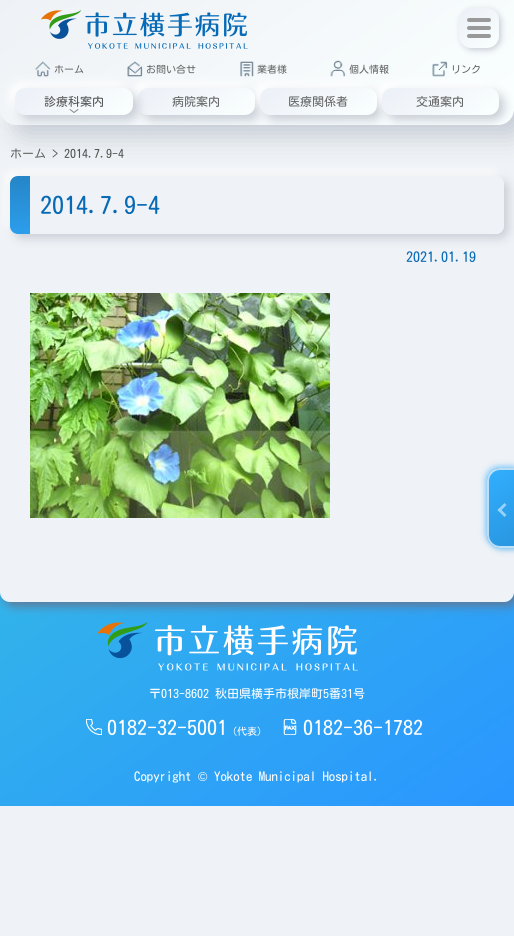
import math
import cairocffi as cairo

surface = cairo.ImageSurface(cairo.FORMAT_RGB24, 514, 936)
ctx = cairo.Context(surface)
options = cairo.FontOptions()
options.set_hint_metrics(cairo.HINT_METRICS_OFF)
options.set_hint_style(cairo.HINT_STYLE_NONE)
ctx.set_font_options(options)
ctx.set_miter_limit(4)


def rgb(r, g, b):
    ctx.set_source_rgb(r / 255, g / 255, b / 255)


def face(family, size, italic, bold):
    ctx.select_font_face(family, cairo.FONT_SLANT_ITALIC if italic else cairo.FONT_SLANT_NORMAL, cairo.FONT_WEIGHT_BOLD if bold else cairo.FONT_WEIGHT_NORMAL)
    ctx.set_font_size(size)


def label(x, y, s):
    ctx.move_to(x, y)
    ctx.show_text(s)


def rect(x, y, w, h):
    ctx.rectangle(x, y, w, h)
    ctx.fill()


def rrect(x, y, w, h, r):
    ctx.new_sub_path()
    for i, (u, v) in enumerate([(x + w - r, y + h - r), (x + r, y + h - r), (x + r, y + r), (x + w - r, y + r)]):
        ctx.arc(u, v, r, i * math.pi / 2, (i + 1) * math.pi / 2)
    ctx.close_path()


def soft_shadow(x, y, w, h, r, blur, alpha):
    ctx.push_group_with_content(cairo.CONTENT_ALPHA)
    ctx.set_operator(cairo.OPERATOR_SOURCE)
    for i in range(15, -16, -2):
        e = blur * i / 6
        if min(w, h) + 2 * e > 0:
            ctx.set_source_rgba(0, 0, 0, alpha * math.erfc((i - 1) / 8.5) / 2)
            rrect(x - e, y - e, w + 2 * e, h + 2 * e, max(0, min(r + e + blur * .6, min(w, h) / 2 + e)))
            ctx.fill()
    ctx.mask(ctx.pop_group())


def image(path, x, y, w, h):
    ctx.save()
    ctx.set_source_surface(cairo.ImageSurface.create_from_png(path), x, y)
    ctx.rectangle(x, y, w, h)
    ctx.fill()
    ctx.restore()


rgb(239, 242, 246)
ctx.paint()
rgb(255, 255, 255)
soft_shadow(-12, -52, 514, 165, 16, 12, 1)
rgb(199, 205, 213)
soft_shadow(12, -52, 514, 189, 16, 12, 1)
ctx.save()
ctx.set_fill_rule(cairo.FILL_RULE_EVEN_ODD)
ctx.new_path()
ctx.move_to(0, 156)
ctx.line_to(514, 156)
ctx.line_to(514, 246)
ctx.line_to(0, 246)
ctx.close_path()
ctx.move_to(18, 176)
ctx.line_to(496, 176)
ctx.curve_to(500.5, 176, 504, 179.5, 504, 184)
ctx.line_to(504, 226)
ctx.curve_to(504, 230.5, 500.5, 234, 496, 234)
ctx.line_to(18, 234)
ctx.curve_to(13.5, 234, 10, 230.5, 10, 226)
ctx.line_to(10, 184)
ctx.curve_to(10, 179.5, 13.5, 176, 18, 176)
ctx.close_path()
ctx.clip()
rgb(255, 255, 255)
soft_shadow(6, 172, 494, 58, 8, 5, 1)
ctx.restore()
ctx.save()
ctx.set_fill_rule(cairo.FILL_RULE_EVEN_ODD)
ctx.new_path()
ctx.move_to(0, 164)
ctx.line_to(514, 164)
ctx.line_to(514, 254)
ctx.line_to(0, 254)
ctx.close_path()
ctx.move_to(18, 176)
ctx.line_to(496, 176)
ctx.curve_to(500.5, 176, 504, 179.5, 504, 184)
ctx.line_to(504, 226)
ctx.curve_to(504, 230.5, 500.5, 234, 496, 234)
ctx.line_to(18, 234)
ctx.curve_to(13.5, 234, 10, 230.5, 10, 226)
ctx.line_to(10, 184)
ctx.curve_to(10, 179.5, 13.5, 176, 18, 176)
ctx.close_path()
ctx.clip()
soft_shadow(14, 180, 494, 58, 8, 5, 1)
ctx.restore()
gradient = cairo.LinearGradient(20, 234, 20, 176)
gradient.add_color_stop_rgba(0, 0.173, 0.62, 0.925, 1)
gradient.add_color_stop_rgba(1, 0.145, 0.522, 0.78, 1)
ctx.set_source(gradient)
ctx.new_path()
ctx.move_to(18, 176)
ctx.line_to(30, 176)
ctx.line_to(30, 234)
ctx.line_to(18, 234)
ctx.curve_to(13.5, 234, 10, 230.5, 10, 226)
ctx.line_to(10, 184)
ctx.curve_to(10, 179.5, 13.5, 176, 18, 176)
ctx.close_path()
ctx.fill()
image('image6.png', 30, 293, 300, 225)
gradient = cairo.LinearGradient(122, 506, 392, 892)
gradient.add_color_stop_rgba(0, 0.196, 0.702, 0.918, 1)
gradient.add_color_stop_rgba(1, 0.165, 0.588, 1, 1)
ctx.set_source(gradient)
rect(0, 592, 514, 214)
ctx.save()
ctx.set_fill_rule(cairo.FILL_RULE_EVEN_ODD)
ctx.new_path()
ctx.move_to(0, 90)
ctx.line_to(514, 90)
ctx.line_to(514, 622)
ctx.line_to(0, 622)
ctx.close_path()
ctx.move_to(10, 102)
ctx.line_to(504, 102)
ctx.curve_to(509.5, 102, 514, 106.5, 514, 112)
ctx.line_to(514, 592)
ctx.curve_to(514, 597.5, 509.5, 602, 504, 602)
ctx.line_to(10, 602)
ctx.curve_to(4.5, 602, 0, 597.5, 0, 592)
ctx.line_to(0, 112)
ctx.curve_to(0, 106.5, 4.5, 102, 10, 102)
ctx.close_path()
ctx.clip()
rgb(98, 119, 147)
soft_shadow(4, 106, 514, 500, 10, 5, 1)
ctx.restore()
gradient = cairo.LinearGradient(114, -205, 400, 205)
gradient.add_color_stop_rgba(0, 0.922, 0.933, 0.953, 1)
gradient.add_color_stop_rgba(1, 0.98, 1, 1, 1)
ctx.set_source(gradient)
rrect(0, -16, 514, 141, 16)
ctx.fill()
rgb(199, 205, 213)
soft_shadow(461, 10, 40, 40, 12, 3, 1)
gradient = cairo.LinearGradient(463, 5.2, 495, 51)
gradient.add_color_stop_rgba(0, 0.925, 0.941, 0.969, 1)
gradient.add_color_stop_rgba(1, 0.98, 1, 1, 1)
ctx.set_source(gradient)
rrect(459, 8, 40, 40, 12)
ctx.fill()
rgb(153, 153, 153)
rrect(467, 18, 24, 4, 2)
ctx.fill()
rrect(467, 26, 24, 4, 2)
ctx.fill()
rrect(467, 34, 24, 4, 2)
ctx.fill()
image('image0.png', 41, 10, 207, 39)
image('image1.png', 35, 61, 16, 16)
face('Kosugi', 10, 0, 0)
rgb(102, 102, 102)
label(54, 73, 'ホーム')
image('image2.png', 127, 61, 16, 16)
label(146, 73, 'お問い合せ')
image('image3.png', 240, 61, 14, 16)
label(257, 73, '業者様')
image('image4.png', 330, 60, 16, 17)
label(349, 73, '個人情報')
image('image5.png', 432, 61, 16, 16)
label(451, 73, 'リンク')
rgb(255, 255, 255)
soft_shadow(133, 83, 117, 27, 10, 5, 1)
rgb(199, 205, 213)
soft_shadow(143, 93, 117, 27, 10, 5, 1)
gradient = cairo.LinearGradient(171, 65, 222, 138)
gradient.add_color_stop_rgba(0, 0.925, 0.941, 0.969, 1)
gradient.add_color_stop_rgba(1, 0.98, 1, 1, 1)
ctx.set_source(gradient)
rrect(138, 88, 117, 27, 10)
ctx.fill()
rgb(255, 255, 255)
soft_shadow(10, 83, 118, 27, 10, 5, 1)
rgb(199, 205, 213)
soft_shadow(20, 93, 118, 27, 10, 5, 1)
gradient = cairo.LinearGradient(48, 65, 100, 138)
gradient.add_color_stop_rgba(0, 0.925, 0.941, 0.969, 1)
gradient.add_color_stop_rgba(1, 0.98, 1, 1, 1)
ctx.set_source(gradient)
rrect(15, 88, 118, 27, 10)
ctx.fill()
face('Kosugi', 12, 0, 0)
rgb(85, 85, 85)
label(44, 106, '診療科案内')
ctx.new_path()
ctx.move_to(70, 109.5)
ctx.line_to(74, 112.5)
ctx.line_to(78, 109.5)
rgb(136, 136, 136)
ctx.set_line_width(1)
ctx.set_line_cap(cairo.LINE_CAP_ROUND)
ctx.set_line_join(cairo.LINE_JOIN_ROUND)
ctx.stroke()
rgb(102, 102, 102)
label(172, 106, '病院案内')
rgb(255, 255, 255)
soft_shadow(255, 83, 117, 27, 10, 5, 1)
rgb(199, 205, 213)
soft_shadow(265, 93, 117, 27, 10, 5, 1)
gradient = cairo.LinearGradient(293, 65, 344, 138)
gradient.add_color_stop_rgba(0, 0.925, 0.941, 0.969, 1)
gradient.add_color_stop_rgba(1, 0.98, 1, 1, 1)
ctx.set_source(gradient)
rrect(260, 88, 117, 27, 10)
ctx.fill()
rgb(102, 102, 102)
label(288, 106, '医療関係者')
rgb(255, 255, 255)
soft_shadow(377, 83, 117, 27, 10, 5, 1)
rgb(199, 205, 213)
soft_shadow(387, 93, 117, 27, 10, 5, 1)
gradient = cairo.LinearGradient(415, 65, 466, 138)
gradient.add_color_stop_rgba(0, 0.925, 0.941, 0.969, 1)
gradient.add_color_stop_rgba(1, 0.98, 1, 1, 1)
ctx.set_source(gradient)
rrect(382, 88, 117, 27, 10)
ctx.fill()
rgb(102, 102, 102)
label(416, 106, '交通案内')
label(10, 158, 'ホーム')
rgb(85, 85, 85)
label(52, 158, '> 2014.7.9-4')
face('Kosugi', 24, 0, 0)
rgb(7, 106, 182)
label(40, 214, '2014.7.9-4')
face('Kosugi', 14, 0, 0)
label(406, 262, '2021.01.19')
rgb(48, 172, 255)
soft_shadow(485, 466, 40, 80, 13, 3, 0.5)
rgb(44, 156, 233)
soft_shadow(489, 470, 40, 80, 13, 3, 0.5)
ctx.save()
rrect(487, 468, 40, 80, 13)
ctx.clip()
gradient = cairo.LinearGradient(483, 398, 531, 466)
gradient.add_color_stop_rgba(0, 0.192, 0.686, 1, 1)
gradient.add_color_stop_rgba(1, 0.161, 0.58, 0.867, 1)
ctx.set_source(gradient)
rect(489, 468, 25, 2)
gradient = cairo.LinearGradient(447, 474, 495, 542)
gradient.add_color_stop_rgba(0, 0.192, 0.686, 1, 1)
gradient.add_color_stop_rgba(1, 0.161, 0.58, 0.867, 1)
ctx.set_source(gradient)
rect(487, 470, 2, 76)
gradient = cairo.LinearGradient(483, 474, 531, 542)
gradient.add_color_stop_rgba(0, 0.192, 0.686, 1, 1)
gradient.add_color_stop_rgba(1, 0.161, 0.58, 0.867, 1)
ctx.set_source(gradient)
rect(489, 470, 25, 76)
gradient = cairo.LinearGradient(483, 550, 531, 618)
gradient.add_color_stop_rgba(0, 0.192, 0.686, 1, 1)
gradient.add_color_stop_rgba(1, 0.161, 0.58, 0.867, 1)
ctx.set_source(gradient)
rect(489, 546, 25, 2)
ctx.restore()
rrect(488, 469, 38, 78, 12)
ctx.set_source_rgba(0.937, 0.949, 0.965, 0.75)
ctx.set_line_width(2)
ctx.set_line_cap(cairo.LINE_CAP_BUTT)
ctx.set_line_join(cairo.LINE_JOIN_MITER)
ctx.stroke()
rgb(151, 210, 249)
ctx.new_path()
ctx.move_to(504.5, 517)
ctx.line_to(497.5, 510)
ctx.line_to(499.5, 508)
ctx.line_to(506.5, 515)
ctx.close_path()
ctx.fill()
ctx.new_path()
ctx.move_to(499.5, 512)
ctx.line_to(497.5, 510)
ctx.line_to(504.5, 503)
ctx.line_to(506.5, 505)
ctx.close_path()
ctx.fill()
rgb(239, 242, 246)
ctx.new_path()
ctx.move_to(0, 592)
ctx.line_to(514, 592)
ctx.curve_to(514, 597.5, 509.5, 602, 504, 602)
ctx.line_to(10, 602)
ctx.curve_to(4.5, 602, 0, 597.5, 0, 592)
ctx.close_path()
ctx.fill()
image('image7.png', 97, 622, 261, 49)
face('Kosugi', 12, 0, 0)
rgb(255, 255, 255)
label(149, 698, '〒013-8602 秋田県横手市根岸町5番31号')
image('image8.png', 86, 719, 16, 16)
face('Kosugi', 20, 0, 0)
label(107, 735, '0182-32-5001')
face('Kosugi', 10, 0, 0)
label(232, 735, '(代表)')
image('image9.png', 283, 719, 14, 16)
face('Kosugi', 20, 0, 0)
label(303, 735, '0182-36-1782')
face('Kosugi', 12.75, 0, 0)
label(134, 781, 'Copyright')
face('Liberation Sans', 12.75, 0, 0)
label(198, 781, '©')
face('Kosugi', 12.75, 0, 0)
label(214, 781, 'Yokote Municipal Hospital.')
surface.write_to_png('render.png')
